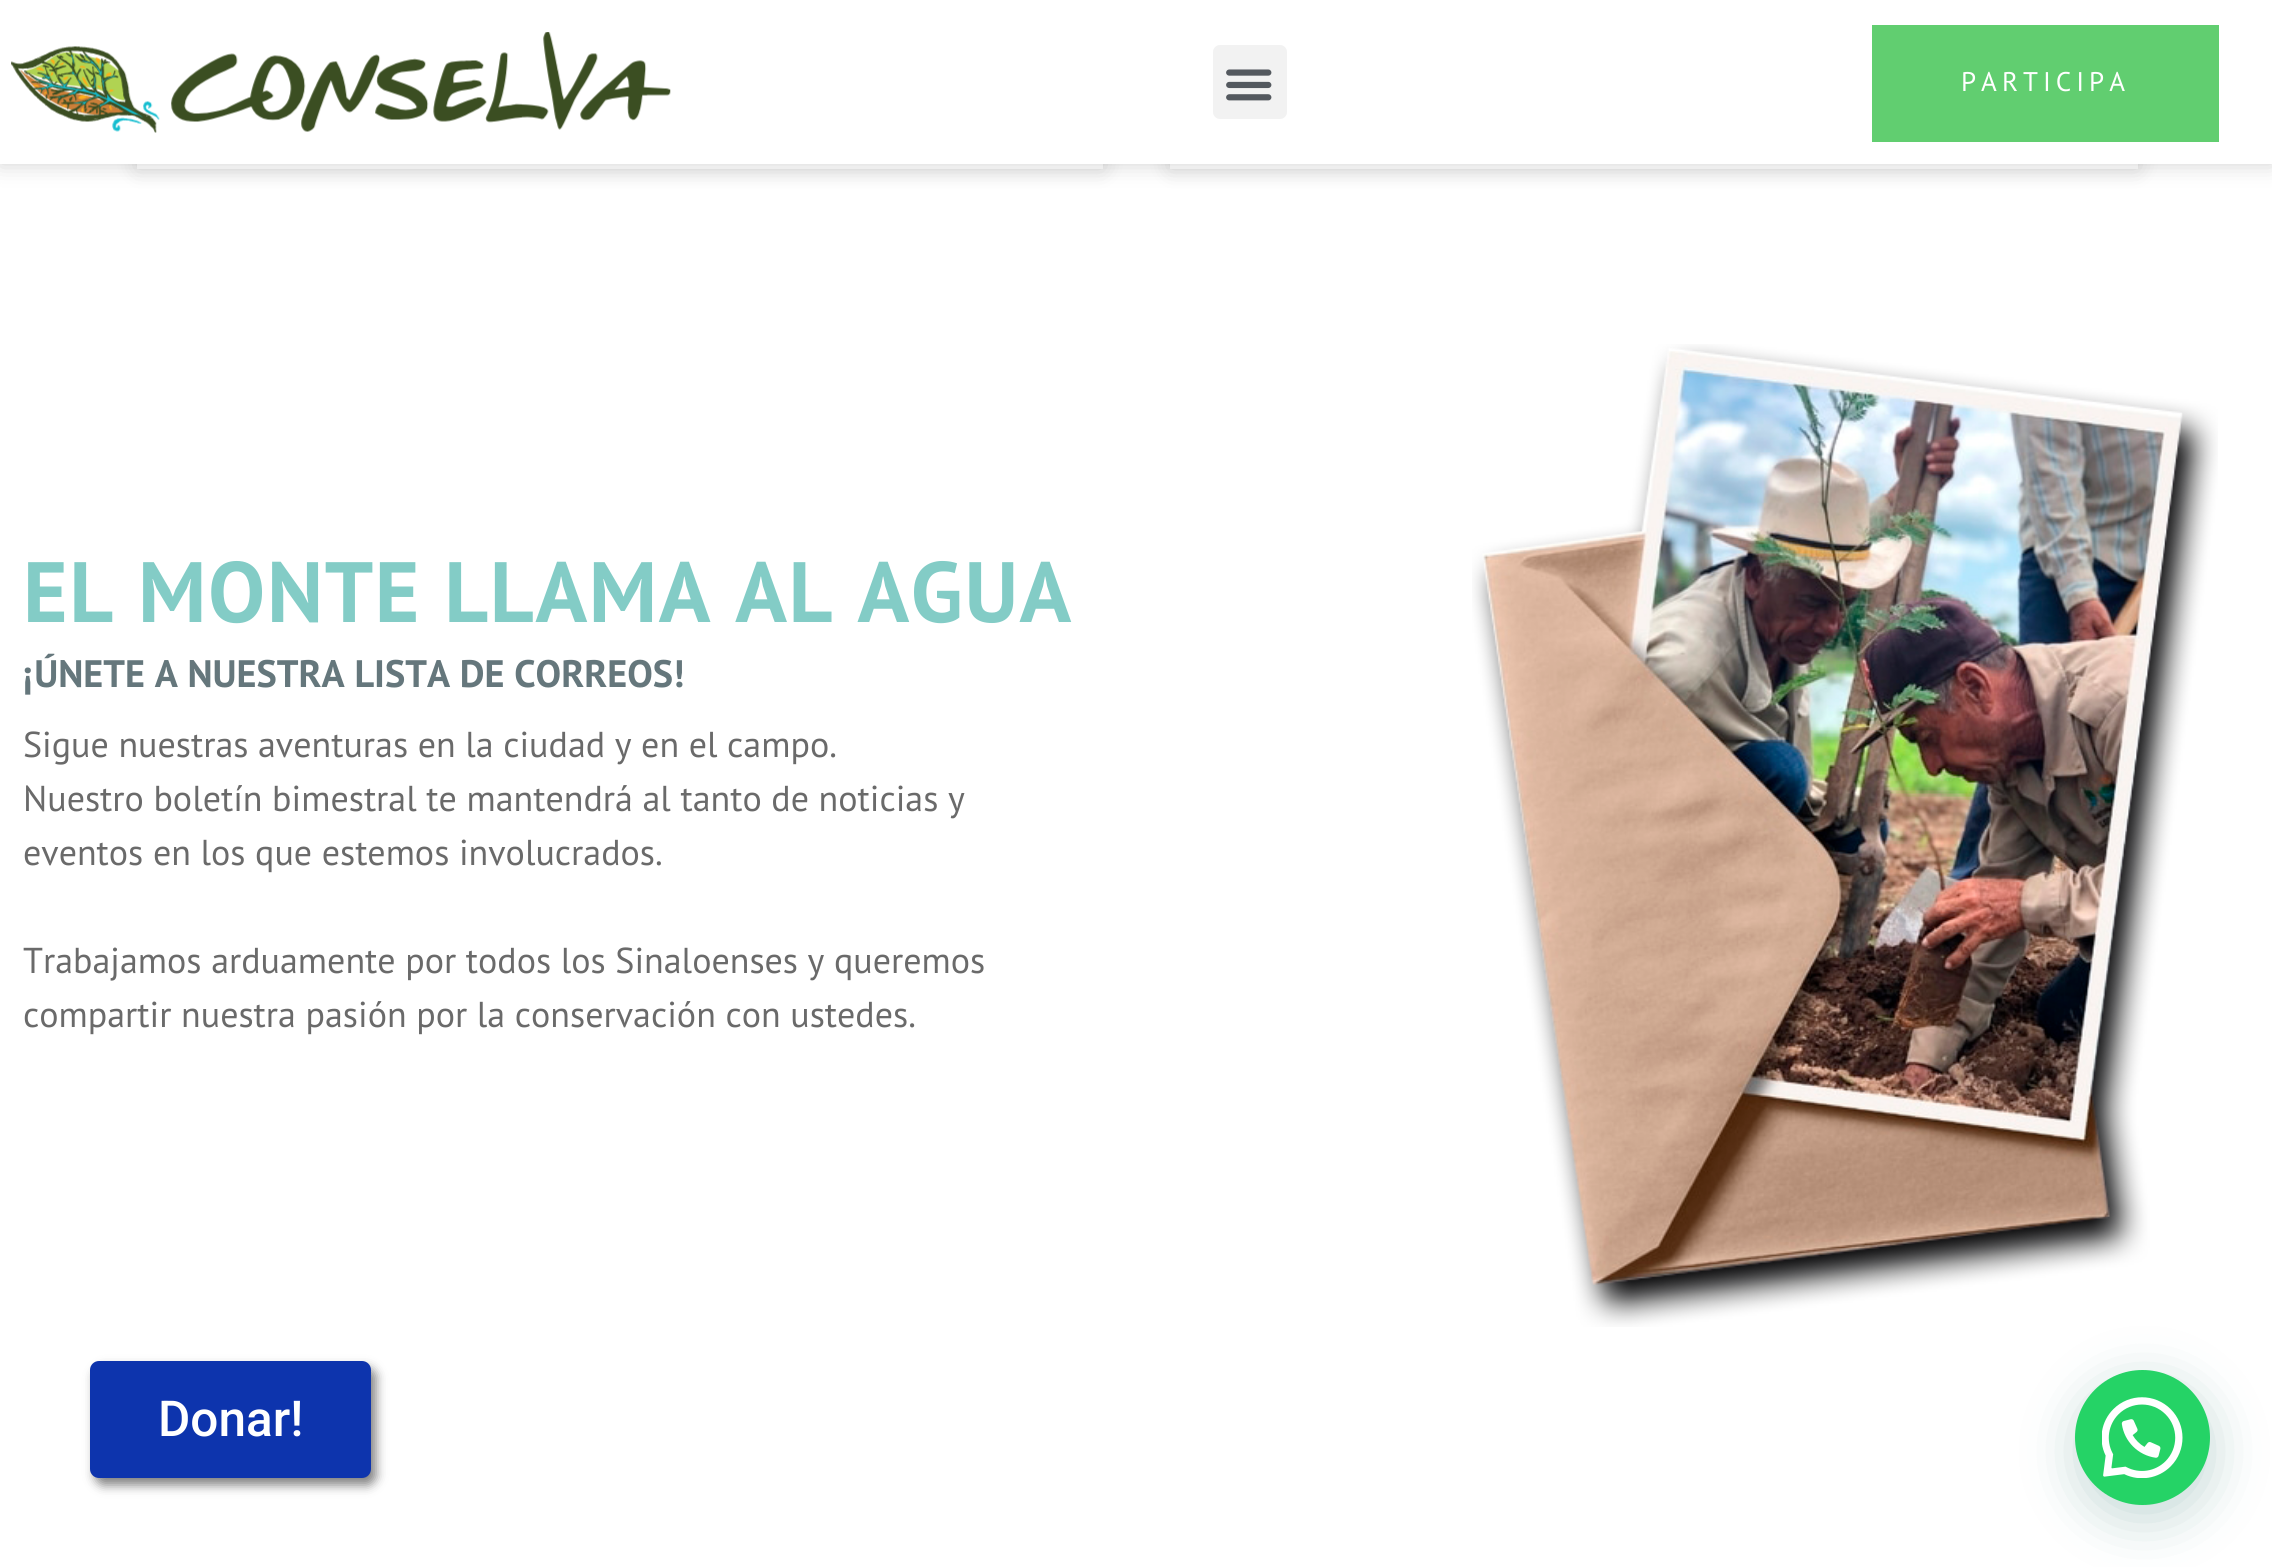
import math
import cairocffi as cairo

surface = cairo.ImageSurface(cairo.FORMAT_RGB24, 2272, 1567)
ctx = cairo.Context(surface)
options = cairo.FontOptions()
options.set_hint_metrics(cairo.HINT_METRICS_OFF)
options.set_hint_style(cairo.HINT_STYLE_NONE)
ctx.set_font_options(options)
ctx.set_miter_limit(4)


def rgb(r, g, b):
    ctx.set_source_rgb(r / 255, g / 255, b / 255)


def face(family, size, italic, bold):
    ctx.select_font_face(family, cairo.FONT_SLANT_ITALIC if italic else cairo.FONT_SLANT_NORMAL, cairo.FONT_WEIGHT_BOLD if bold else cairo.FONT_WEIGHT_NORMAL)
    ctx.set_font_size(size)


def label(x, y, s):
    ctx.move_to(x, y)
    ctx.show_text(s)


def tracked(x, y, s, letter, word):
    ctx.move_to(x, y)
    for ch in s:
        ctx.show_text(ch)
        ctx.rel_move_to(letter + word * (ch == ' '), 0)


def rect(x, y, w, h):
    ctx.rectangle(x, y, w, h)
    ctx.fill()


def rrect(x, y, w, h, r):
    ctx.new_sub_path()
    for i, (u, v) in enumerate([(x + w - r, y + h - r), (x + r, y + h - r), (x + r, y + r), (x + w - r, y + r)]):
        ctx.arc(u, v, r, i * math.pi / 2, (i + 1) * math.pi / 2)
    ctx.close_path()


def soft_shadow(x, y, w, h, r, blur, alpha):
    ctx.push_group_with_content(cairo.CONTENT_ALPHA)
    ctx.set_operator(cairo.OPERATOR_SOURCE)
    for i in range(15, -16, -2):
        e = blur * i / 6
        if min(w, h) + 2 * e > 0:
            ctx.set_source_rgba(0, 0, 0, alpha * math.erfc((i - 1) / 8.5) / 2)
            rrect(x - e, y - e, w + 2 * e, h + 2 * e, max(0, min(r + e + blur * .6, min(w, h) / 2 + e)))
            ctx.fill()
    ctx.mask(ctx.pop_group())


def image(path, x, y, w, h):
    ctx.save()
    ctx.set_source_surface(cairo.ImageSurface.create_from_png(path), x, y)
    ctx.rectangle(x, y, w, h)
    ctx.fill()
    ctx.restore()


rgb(255, 255, 255)
ctx.paint()
rgb(0, 0, 0)
soft_shadow(137, -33, 966, 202, 0, 11, 0.15)
rgb(255, 255, 255)
rect(137, 164, 966, 5)
rgb(0, 0, 0)
soft_shadow(1170, -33, 968, 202, 0, 11, 0.15)
rgb(255, 255, 255)
rect(1170, 164, 968, 5)
rgb(0, 0, 0)
soft_shadow(0, 0, 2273, 164, 0, 11, 0.18)
rgb(255, 255, 255)
rect(0, 0, 2272, 164)
image('image0.png', 11, 32, 660, 101)
rgb(97, 206, 112)
rect(1872, 25, 347, 117)
face('PT Sans', 27, 0, 0)
rgb(255, 255, 255)
tracked(1961, 91, 'PARTICIPA', 5, 0)
rgb(242, 242, 242)
rrect(1213, 45, 74, 74, 7)
ctx.fill()
image('image1.png', 1226, 69, 46, 32)
rgb(0, 0, 0)
soft_shadow(95, 1368, 281, 117, 9, 5.5, 0.5)
rgb(13, 52, 173)
rrect(90, 1361, 281, 117, 9)
ctx.fill()
face('Roboto Medium', 49.5, 0, 0)
rgb(255, 255, 255)
label(158, 1436, 'Donar!')
face('PT Sans', 85.5, 0, 1)
rgb(131, 204, 198)
tracked(23, 622, 'EL MONTE LLAMA AL AGUA', 1.6, 0)
face('PT Sans', 38.25, 0, 1)
rgb(101, 119, 124)
label(23, 687, '¡ÚNETE A NUESTRA LISTA DE CORREOS!')
face('PT Sans', 36, 0, 0)
rgb(106, 106, 106)
label(23, 757, 'Sigue nuestras aventuras en la ciudad y en el campo.')
label(23, 811, 'Nuestro boletín bimestral te mantendrá al tanto de noticias y')
label(23, 865, 'eventos en los que estemos involucrados.')
label(23, 973, 'Trabajamos arduamente por todos los Sinaloenses y queremos')
label(23, 1027, 'compartir nuestra pasión por la conservación con ustedes.')
image('image2.png', 1472, 344, 746, 983)
rgb(7, 94, 84)
soft_shadow(2077, 1384, 135, 135, 67.5, 27, 0.24)
rgb(37, 211, 102)
ctx.arc(2142.5, 1437.5, 67.5, 0, 2 * math.pi)
ctx.fill()
image('image3.png', 2102, 1397, 81, 81)
surface.write_to_png('render.png')
